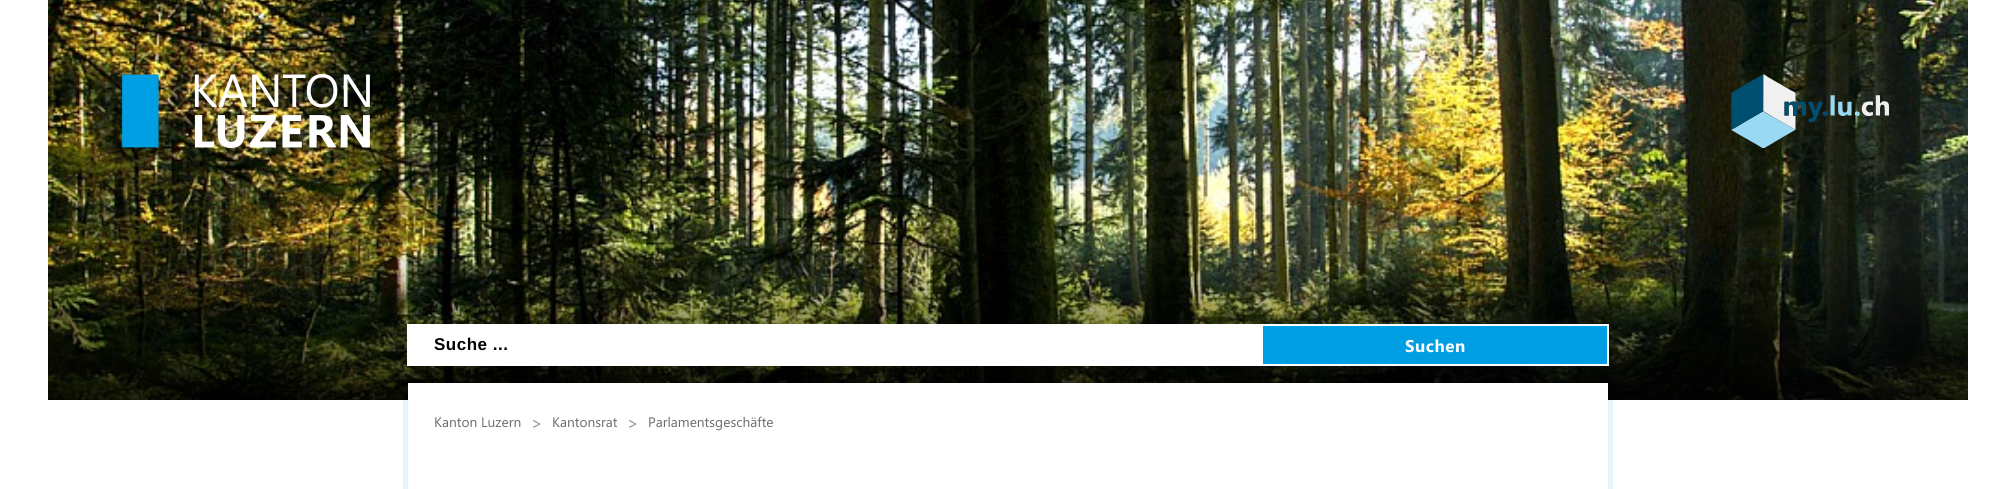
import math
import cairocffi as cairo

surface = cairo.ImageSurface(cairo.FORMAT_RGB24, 2016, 489)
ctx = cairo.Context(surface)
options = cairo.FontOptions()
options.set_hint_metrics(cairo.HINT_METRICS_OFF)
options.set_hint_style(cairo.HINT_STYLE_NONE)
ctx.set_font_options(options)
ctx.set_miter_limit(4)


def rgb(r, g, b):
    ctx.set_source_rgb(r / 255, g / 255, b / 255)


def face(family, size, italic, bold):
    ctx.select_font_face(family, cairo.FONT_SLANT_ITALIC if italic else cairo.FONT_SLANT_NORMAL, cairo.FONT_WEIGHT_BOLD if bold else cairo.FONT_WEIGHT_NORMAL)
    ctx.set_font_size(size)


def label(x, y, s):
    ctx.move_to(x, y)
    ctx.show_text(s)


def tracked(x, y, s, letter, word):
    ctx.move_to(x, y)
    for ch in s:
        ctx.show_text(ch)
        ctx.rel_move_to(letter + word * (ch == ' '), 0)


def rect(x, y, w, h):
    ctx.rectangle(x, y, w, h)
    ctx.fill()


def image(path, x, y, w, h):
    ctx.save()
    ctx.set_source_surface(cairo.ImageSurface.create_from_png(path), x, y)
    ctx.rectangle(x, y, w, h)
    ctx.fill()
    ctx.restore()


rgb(255, 255, 255)
ctx.paint()
image('image0.png', 48, 0, 1920, 400)
image('image1.png', 122, 74, 248, 74)
image('image2.png', 1731, 74, 158, 74)
rgb(255, 255, 255)
rect(407, 324, 1202, 42)
face('Liberation Sans', 17, 0, 1)
rgb(0, 0, 0)
tracked(434, 350, 'Suche ...', 0.5, 0)
rgb(0, 159, 227)
rect(1263, 326, 344, 38)
face('Segoe UI', 17, 0, 1)
rgb(255, 255, 255)
tracked(1405, 352, 'Suchen', 0.5, 0)
rect(408, 383, 1200, 17)
rgb(230, 245, 252)
rect(403, 400, 5, 89)
face('Segoe UI', 13.75, 0, 0)
rgb(107, 107, 107)
label(434, 427, 'Kanton Luzern')
face('Segoe UI', 17, 0, 0)
rgb(137, 137, 137)
label(531, 429, '>')
face('Segoe UI', 13.75, 0, 0)
rgb(107, 107, 107)
label(552, 427, 'Kantonsrat')
face('Segoe UI', 17, 0, 0)
rgb(137, 137, 137)
label(627, 429, '>')
face('Segoe UI', 13.75, 0, 0)
rgb(107, 107, 107)
label(648, 427, 'Parlamentsgeschäfte')
rgb(230, 245, 252)
rect(1608, 400, 5, 89)
surface.write_to_png('render.png')
